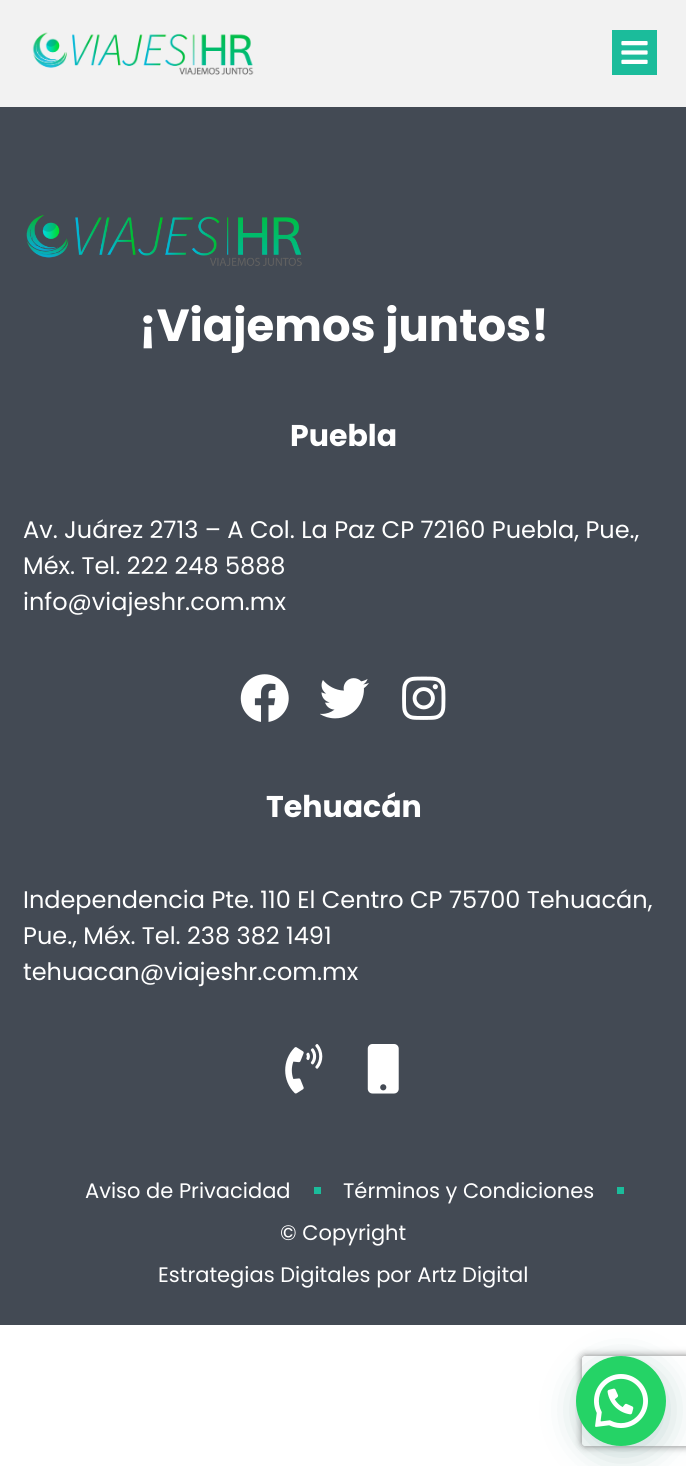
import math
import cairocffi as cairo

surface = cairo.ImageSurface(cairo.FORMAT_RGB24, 686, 1466)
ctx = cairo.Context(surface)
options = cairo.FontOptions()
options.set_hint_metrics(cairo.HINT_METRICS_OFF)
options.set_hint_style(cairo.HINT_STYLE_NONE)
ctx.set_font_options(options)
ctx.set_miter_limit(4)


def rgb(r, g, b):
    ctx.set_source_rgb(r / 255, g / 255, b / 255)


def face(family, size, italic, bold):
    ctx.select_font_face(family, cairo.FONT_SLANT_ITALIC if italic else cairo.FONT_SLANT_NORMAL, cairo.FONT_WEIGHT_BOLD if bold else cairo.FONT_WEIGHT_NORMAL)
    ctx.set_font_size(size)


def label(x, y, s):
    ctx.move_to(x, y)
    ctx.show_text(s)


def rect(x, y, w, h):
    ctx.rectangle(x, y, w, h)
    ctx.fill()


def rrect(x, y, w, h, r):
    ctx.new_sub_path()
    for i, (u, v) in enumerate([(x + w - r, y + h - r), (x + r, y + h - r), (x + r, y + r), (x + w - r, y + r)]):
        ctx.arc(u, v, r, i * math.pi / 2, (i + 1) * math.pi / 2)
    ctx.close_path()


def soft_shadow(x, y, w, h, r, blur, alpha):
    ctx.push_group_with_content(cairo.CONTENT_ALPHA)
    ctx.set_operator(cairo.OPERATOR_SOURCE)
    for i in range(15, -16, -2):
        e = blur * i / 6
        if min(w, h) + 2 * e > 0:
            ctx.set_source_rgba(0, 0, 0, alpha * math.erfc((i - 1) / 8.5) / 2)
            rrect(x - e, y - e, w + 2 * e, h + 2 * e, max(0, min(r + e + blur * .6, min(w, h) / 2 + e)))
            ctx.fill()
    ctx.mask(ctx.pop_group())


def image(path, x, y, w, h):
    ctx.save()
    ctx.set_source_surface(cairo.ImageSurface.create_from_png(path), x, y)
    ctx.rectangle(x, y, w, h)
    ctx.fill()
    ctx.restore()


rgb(255, 255, 255)
ctx.paint()
rgb(242, 242, 242)
rect(0, 0, 686, 107)
image('image0.png', 32, 32, 222, 43)
rgb(27, 188, 155)
rect(612, 30, 45, 45)
image('image1.png', 621, 41, 27, 23)
rgb(67, 74, 84)
rect(0, 107, 686, 1218)
image('image2.png', 26, 215, 276, 51)
face('Poppins', 45, 0, 1)
rgb(255, 255, 255)
label(139, 341, '¡Viajemos juntos!')
face('Poppins', 30, 0, 1)
label(290, 446, 'Puebla')
face('Poppins', 24, 0, 0)
label(23, 538, 'Av. Juárez 2713 – A Col. La Paz CP 72160 Puebla, Pue.,')
label(23, 574, 'Méx. Tel. 222 248 5888')
label(23, 610, 'info@viajeshr.com.mx')
image('image3.png', 240, 674, 49, 48)
image('image4.png', 320, 678, 49, 41)
image('image5.png', 402, 676, 44, 44)
face('Poppins', 30, 0, 1)
label(266, 817, 'Tehuacán')
face('Poppins', 24, 0, 0)
label(23, 908, 'Independencia Pte. 110 El Centro CP 75700 Tehuacán,')
label(23, 944, 'Pue., Méx. Tel. 238 382 1491')
label(23, 980, 'tehuacan@viajeshr.com.mx')
image('image6.png', 285, 1044, 38, 50)
image('image7.png', 367, 1044, 32, 50)
face('Poppins', 21, 0, 0)
label(85, 1198, 'Aviso de Privacidad')
rgb(27, 188, 155)
rect(314, 1187, 7, 7)
rgb(255, 255, 255)
label(343, 1198, 'Términos y Condiciones')
rgb(27, 188, 155)
rect(617, 1187, 7, 7)
rgb(255, 255, 255)
label(280, 1240, '© Copyright')
label(158, 1282, 'Estrategias Digitales por Artz Digital')
rgb(7, 94, 84)
soft_shadow(578, 1365, 90, 90, 45, 18, 0.24)
ctx.save()
ctx.set_fill_rule(cairo.FILL_RULE_EVEN_ODD)
ctx.new_path()
ctx.move_to(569, 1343)
ctx.line_to(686, 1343)
ctx.line_to(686, 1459)
ctx.line_to(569, 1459)
ctx.close_path()
ctx.move_to(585, 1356)
ctx.line_to(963, 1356)
ctx.curve_to(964.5, 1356, 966, 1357.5, 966, 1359)
ctx.line_to(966, 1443)
ctx.curve_to(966, 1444.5, 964.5, 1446, 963, 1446)
ctx.line_to(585, 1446)
ctx.curve_to(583.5, 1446, 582, 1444.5, 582, 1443)
ctx.line_to(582, 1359)
ctx.curve_to(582, 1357.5, 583.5, 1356, 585, 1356)
ctx.close_path()
ctx.clip()
rgb(128, 128, 128)
soft_shadow(582, 1356, 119, 90, 3, 4, 1)
ctx.restore()
rgb(37, 211, 102)
ctx.arc(621, 1401, 45, 0, 2 * math.pi)
ctx.fill()
image('image8.png', 594, 1374, 54, 54)
surface.write_to_png('render.png')
